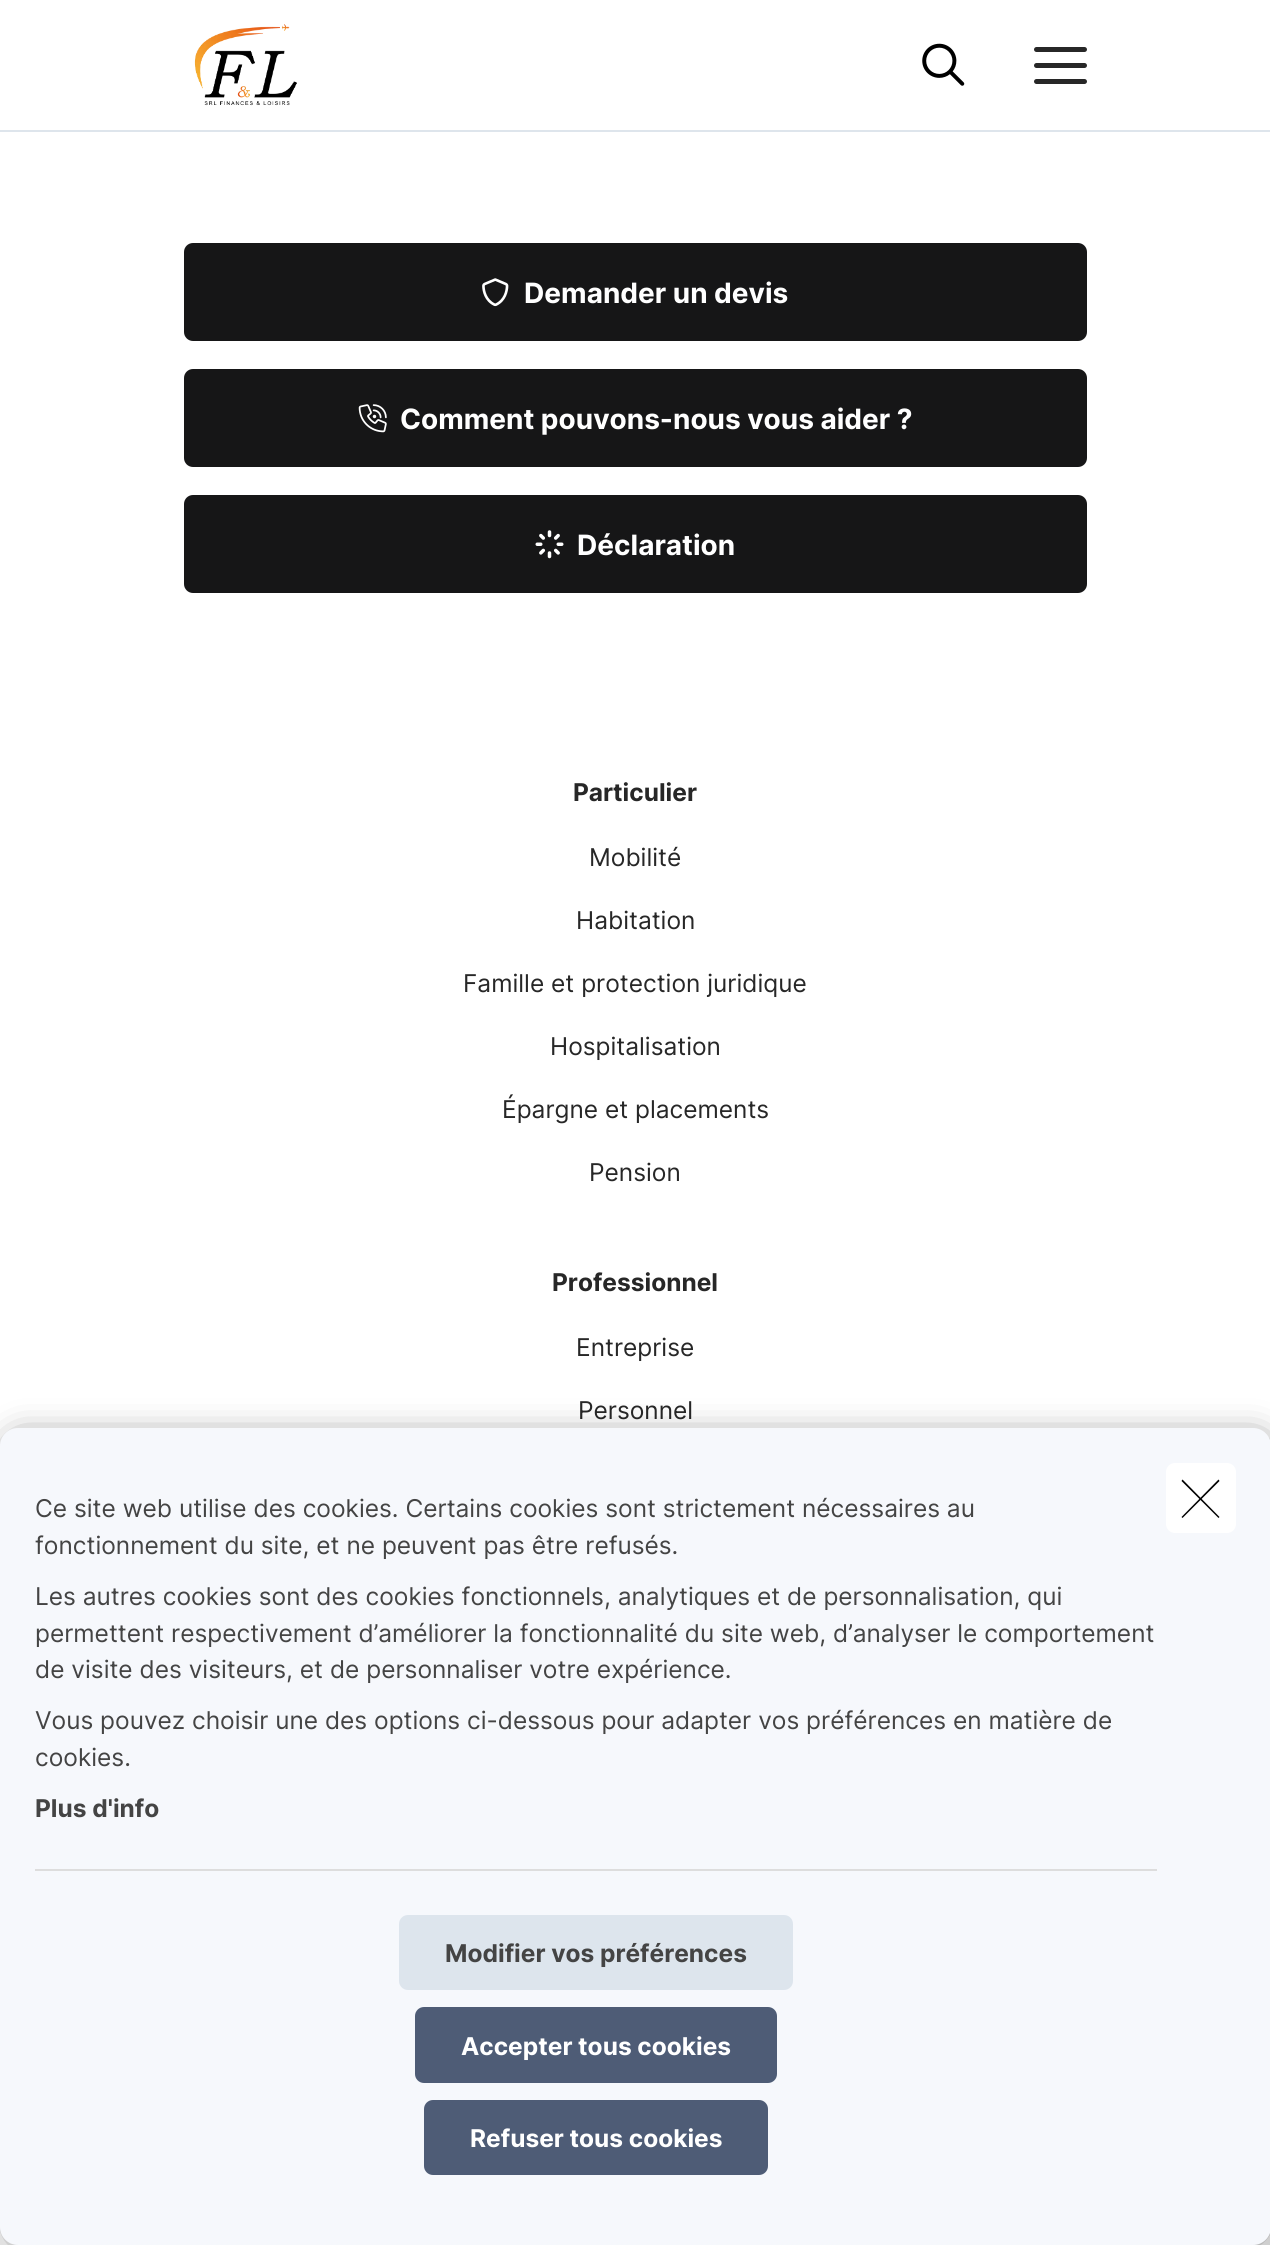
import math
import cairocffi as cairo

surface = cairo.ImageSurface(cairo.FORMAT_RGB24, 1270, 2245)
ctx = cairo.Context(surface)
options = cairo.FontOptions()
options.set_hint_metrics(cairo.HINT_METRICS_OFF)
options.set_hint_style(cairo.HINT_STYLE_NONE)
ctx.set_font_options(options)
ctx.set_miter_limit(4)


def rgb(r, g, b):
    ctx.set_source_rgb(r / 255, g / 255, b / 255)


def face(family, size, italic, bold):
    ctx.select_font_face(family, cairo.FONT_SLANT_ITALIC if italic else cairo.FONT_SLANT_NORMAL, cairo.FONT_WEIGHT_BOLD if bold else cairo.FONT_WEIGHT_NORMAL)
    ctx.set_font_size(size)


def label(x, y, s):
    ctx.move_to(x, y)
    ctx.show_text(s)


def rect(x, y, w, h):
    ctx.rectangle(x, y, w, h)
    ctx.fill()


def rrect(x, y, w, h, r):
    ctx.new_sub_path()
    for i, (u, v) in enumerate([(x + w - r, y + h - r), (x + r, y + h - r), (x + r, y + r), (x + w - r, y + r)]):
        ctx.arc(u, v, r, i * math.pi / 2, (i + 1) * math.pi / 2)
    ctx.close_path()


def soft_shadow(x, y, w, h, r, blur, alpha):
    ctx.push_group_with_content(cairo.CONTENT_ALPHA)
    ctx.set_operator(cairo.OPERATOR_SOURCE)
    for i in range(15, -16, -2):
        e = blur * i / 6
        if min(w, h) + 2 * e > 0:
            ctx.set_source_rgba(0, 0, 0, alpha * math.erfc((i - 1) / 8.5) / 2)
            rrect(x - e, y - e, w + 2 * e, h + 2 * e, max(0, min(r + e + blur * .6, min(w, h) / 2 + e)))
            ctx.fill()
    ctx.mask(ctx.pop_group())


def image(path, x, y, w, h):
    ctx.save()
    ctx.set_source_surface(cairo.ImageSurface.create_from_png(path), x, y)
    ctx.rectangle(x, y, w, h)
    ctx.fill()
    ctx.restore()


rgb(255, 255, 255)
ctx.paint()
image('image0.png', 194, 24, 103, 82)
image('image1.png', 922, 43, 43, 43)
rgb(39, 39, 39)
rrect(1034, 63, 53, 5, 2.5)
ctx.fill()
rrect(1034, 47, 53, 5, 2.5)
ctx.fill()
rrect(1034, 79, 53, 5, 2.5)
ctx.fill()
rgb(222, 229, 236)
rect(0, 130, 1270, 2)
rgb(22, 22, 23)
rrect(184, 243, 903, 98, 9)
ctx.fill()
image('image2.png', 482, 278, 27, 29)
face('Inter', 28, 0, 1)
rgb(255, 255, 255)
label(524, 303, 'Demander un devis')
rgb(22, 22, 23)
rrect(184, 369, 903, 98, 9)
ctx.fill()
image('image3.png', 358, 404, 29, 29)
rgb(255, 255, 255)
label(400, 429, 'Comment pouvons-nous vous aider ?')
rgb(22, 22, 23)
rrect(184, 495, 903, 98, 9)
ctx.fill()
image('image4.png', 535, 530, 29, 29)
rgb(255, 255, 255)
label(577, 555, 'Déclaration')
face('Inter', 24.5, 0, 1)
rgb(39, 39, 39)
label(573, 801, 'Particulier')
face('Inter', 24.5, 0, 0)
label(589, 866, 'Mobilité')
label(576, 929, 'Habitation')
label(463, 992, 'Famille et protection juridique')
label(550, 1055, 'Hospitalisation')
label(502, 1118, 'Épargne et placements')
label(589, 1181, 'Pension')
face('Inter', 24.5, 0, 1)
label(552, 1291, 'Professionnel')
face('Inter', 24.5, 0, 0)
label(576, 1356, 'Entreprise')
label(578, 1419, 'Personnel')
rgb(0, 0, 0)
soft_shadow(14, 1444, 1250, 796, 7, 18.5, 0.75)
rgb(246, 248, 252)
rrect(0, 1428, 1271, 817, 18)
ctx.fill()
rgb(221, 221, 221)
rect(35, 1869, 1122, 2)
rgb(68, 68, 68)
label(35, 1517, 'Ce site web utilise des cookies. Certains cookies sont strictement nécessaires au')
label(35, 1554, 'fonctionnement du site, et ne peuvent pas être refusés.')
label(35, 1605, 'Les autres cookies sont des cookies fonctionnels, analytiques et de personnalisation, qui')
label(35, 1642, 'permettent respectivement d’améliorer la fonctionnalité du site web, d’analyser le comportement')
label(35, 1678, 'de visite des visiteurs, et de personnaliser votre expérience.')
label(35, 1729, 'Vous pouvez choisir une des options ci-dessous pour adapter vos préférences en matière de')
label(35, 1766, 'cookies.')
face('Inter', 24.5, 0, 1)
label(35, 1817, 'Plus d\'info')
rgb(221, 229, 237)
rrect(399, 1915, 394, 75, 9)
ctx.fill()
rgb(68, 68, 68)
label(445, 1962, 'Modifier vos préférences')
rgb(78, 92, 118)
rrect(415, 2007, 362, 76, 9)
ctx.fill()
rgb(255, 255, 255)
label(461, 2055, 'Accepter tous cookies')
rgb(78, 92, 118)
rrect(424, 2100, 344, 75, 9)
ctx.fill()
rgb(255, 255, 255)
label(470, 2147, 'Refuser tous cookies')
rrect(1166, 1463, 70, 70, 9)
ctx.fill()
rgb(0, 0, 0)
ctx.new_path()
ctx.move_to(1182.5, 1479.5)
ctx.line_to(1219.5, 1517)
ctx.line_to(1218.5, 1518)
ctx.line_to(1181.5, 1481)
ctx.close_path()
ctx.fill()
ctx.new_path()
ctx.move_to(1181.5, 1517)
ctx.line_to(1218.5, 1479.5)
ctx.line_to(1219.5, 1481)
ctx.line_to(1182.5, 1518)
ctx.close_path()
ctx.fill()
surface.write_to_png('render.png')
